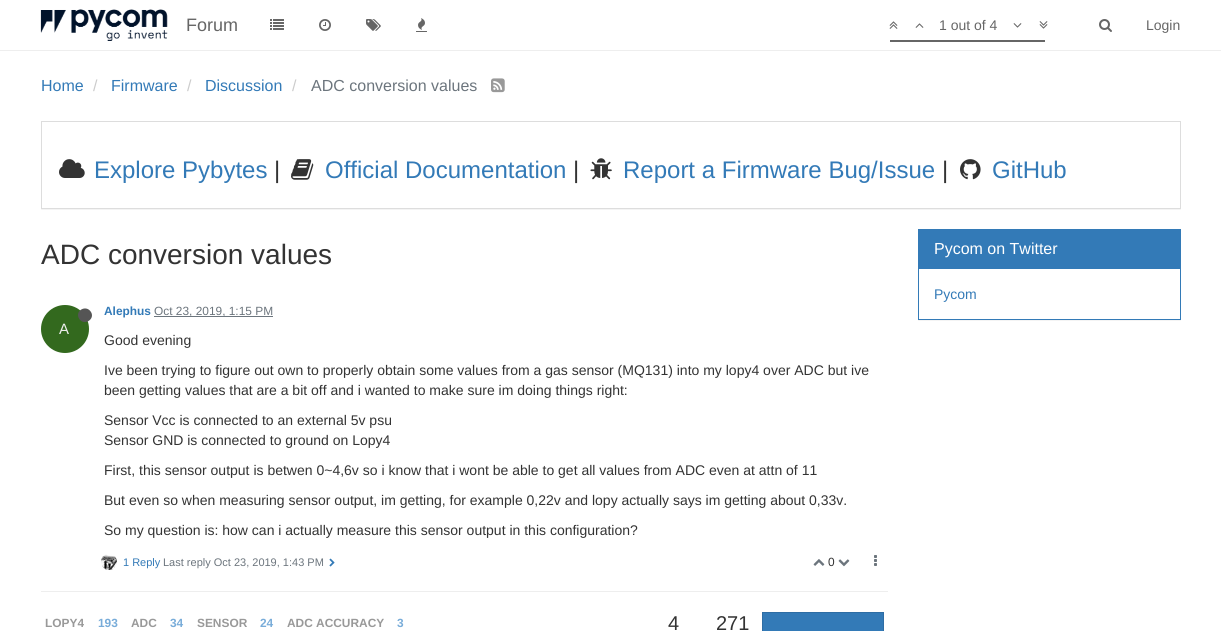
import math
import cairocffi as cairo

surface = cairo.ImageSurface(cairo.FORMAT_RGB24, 1221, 631)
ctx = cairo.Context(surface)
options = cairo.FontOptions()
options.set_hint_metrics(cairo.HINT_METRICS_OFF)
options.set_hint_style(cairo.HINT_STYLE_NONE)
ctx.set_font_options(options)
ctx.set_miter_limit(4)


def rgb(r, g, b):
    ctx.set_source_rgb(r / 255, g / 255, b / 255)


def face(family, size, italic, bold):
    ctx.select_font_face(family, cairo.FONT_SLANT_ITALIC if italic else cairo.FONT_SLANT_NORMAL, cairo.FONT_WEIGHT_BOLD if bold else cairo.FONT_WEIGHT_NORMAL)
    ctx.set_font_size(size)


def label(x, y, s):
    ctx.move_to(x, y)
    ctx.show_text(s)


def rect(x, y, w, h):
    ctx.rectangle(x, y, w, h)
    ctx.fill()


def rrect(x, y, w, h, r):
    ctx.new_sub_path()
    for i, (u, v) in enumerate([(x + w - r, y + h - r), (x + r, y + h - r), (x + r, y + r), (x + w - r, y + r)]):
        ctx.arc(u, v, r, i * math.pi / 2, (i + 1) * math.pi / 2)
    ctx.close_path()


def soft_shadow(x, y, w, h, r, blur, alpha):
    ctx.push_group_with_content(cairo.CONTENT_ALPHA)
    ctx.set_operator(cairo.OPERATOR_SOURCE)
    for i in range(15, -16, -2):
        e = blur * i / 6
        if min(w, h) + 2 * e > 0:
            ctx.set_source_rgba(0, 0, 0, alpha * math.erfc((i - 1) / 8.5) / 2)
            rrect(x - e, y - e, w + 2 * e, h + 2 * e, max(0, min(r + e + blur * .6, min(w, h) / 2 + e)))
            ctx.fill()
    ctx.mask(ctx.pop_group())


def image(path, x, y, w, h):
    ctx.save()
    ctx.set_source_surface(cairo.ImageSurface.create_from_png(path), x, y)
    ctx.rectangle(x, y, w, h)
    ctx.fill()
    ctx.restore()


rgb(255, 255, 255)
ctx.paint()
rgb(238, 238, 238)
rect(0, 50, 1221, 1)
image('image0.png', 40, 9, 128, 32)
face('Liberation Sans', 18, 0, 0)
rgb(102, 102, 102)
label(186, 31, 'Forum')
image('image1.png', 270, 19, 14, 11)
image('image2.png', 319, 19, 12, 12)
image('image3.png', 366, 19, 15, 12)
image('image4.png', 416, 18, 11, 14)
image('image5.png', 889, 21, 9, 8)
image('image6.png', 915, 23, 9, 5)
face('Liberation Sans', 14, 0, 0)
label(939, 30, '1 out of 4')
image('image7.png', 1013, 23, 9, 5)
image('image8.png', 1039, 21, 9, 8)
rect(890, 40, 155, 2)
image('image9.png', 1099, 19, 13, 13)
label(1146, 30, 'Login')
face('Liberation Sans', 16, 0, 0)
rgb(51, 122, 183)
label(41, 91, 'Home')
rgb(204, 204, 204)
label(93, 91, '/')
rgb(51, 122, 183)
label(111, 91, 'Firmware')
rgb(204, 204, 204)
label(187, 91, '/')
rgb(51, 122, 183)
label(205, 91, 'Discussion')
rgb(204, 204, 204)
label(292, 91, '/')
rgb(108, 117, 125)
label(311, 91, 'ADC conversion values')
image('image10.png', 491, 78, 14, 15)
ctx.save()
ctx.rectangle(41, 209, 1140, 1)
ctx.clip()
rgb(0, 0, 0)
soft_shadow(41, 122, 1140, 88, 0, 0.5, 0.05)
ctx.restore()
ctx.rectangle(41.5, 121.5, 1139, 87)
rgb(221, 221, 221)
ctx.set_line_width(1)
ctx.stroke()
image('image11.png', 59, 159, 26, 19)
face('Liberation Sans', 24, 0, 0)
rgb(51, 122, 183)
label(94, 178, 'Explore Pybytes')
rgb(51, 51, 51)
label(274, 178, '|')
image('image12.png', 291, 159, 23, 21)
rgb(51, 122, 183)
label(325, 178, 'Official Documentation')
rgb(51, 51, 51)
label(573, 178, '|')
image('image13.png', 590, 158, 22, 22)
rgb(51, 122, 183)
label(623, 178, 'Report a Firmware Bug/Issue')
rgb(51, 51, 51)
label(942, 178, '|')
image('image14.png', 960, 159, 21, 21)
rgb(51, 122, 183)
label(992, 178, 'GitHub')
face('Liberation Sans', 28, 0, 0)
rgb(51, 51, 51)
label(41, 264, 'ADC conversion values')
face('Liberation Sans', 11.9, 0, 1)
rgb(51, 122, 183)
label(104, 315, 'Alephus')
rgb(108, 117, 125)
rect(154, 316, 119, 1)
face('Liberation Sans', 11.9, 0, 0)
label(154, 315, 'Oct 23, 2019, 1:15 PM')
rgb(51, 105, 30)
ctx.new_path()
ctx.arc(65, 329, 24, 0, 2 * math.pi)
ctx.fill()
rgb(85, 85, 85)
ctx.new_path()
ctx.move_to(91, 312)
ctx.curve_to(95.5, 319.5, 83.5, 326.5, 79, 318.5)
ctx.curve_to(74.5, 311, 86, 304, 91, 312)
ctx.close_path()
ctx.fill()
face('Liberation Sans', 15, 0, 0)
rgb(238, 238, 238)
label(59, 334, 'A')
face('Liberation Sans', 14, 0, 0)
rgb(51, 51, 51)
label(104, 345, 'Good evening')
label(104, 375, 'Ive been trying to figure out own to properly obtain some values from a gas sensor (MQ131) into my lopy4 over ADC but ive')
label(104, 395, 'been getting values that are a bit off and i wanted to make sure im doing things right:')
label(104, 425, 'Sensor Vcc is connected to an external 5v psu')
label(104, 445, 'Sensor GND is connected to ground on Lopy4')
label(104, 475, 'First, this sensor output is betwen 0~4,6v so i know that i wont be able to get all values from ADC even at attn of 11')
label(104, 505, 'But even so when measuring sensor output, im getting, for example 0,22v and lopy actually says im getting about 0,33v.')
label(104, 535, 'So my question is: how can i actually measure this sensor output in this configuration?')
image('image15.png', 101, 554, 16, 16)
face('Liberation Sans', 11, 0, 0)
rgb(51, 122, 183)
label(123, 566, '1 Reply')
rgb(108, 117, 125)
label(163, 566, 'Last reply Oct 23, 2019, 1:43 PM')
image('image16.png', 329, 558, 6, 9)
image('image17.png', 813, 559, 12, 7)
face('Liberation Sans', 11.9, 0, 0)
rgb(51, 51, 51)
label(828, 566, '0')
image('image18.png', 838, 559, 12, 8)
image('image19.png', 874, 555, 3, 11)
rgb(238, 238, 238)
rect(41, 591, 847, 1)
face('Liberation Sans', 11.9, 0, 1)
rgb(153, 153, 153)
label(45, 627, 'LOPY4')
rgb(120, 172, 217)
label(98, 627, '193')
rgb(153, 153, 153)
label(131, 627, 'ADC')
rgb(120, 172, 217)
label(170, 627, '34')
rgb(153, 153, 153)
label(197, 627, 'SENSOR')
rgb(120, 172, 217)
label(260, 627, '24')
rgb(153, 153, 153)
label(287, 627, 'ADC ACCURACY')
rgb(120, 172, 217)
label(397, 627, '3')
face('Liberation Sans', 20, 0, 0)
rgb(51, 51, 51)
label(668, 630, '4')
label(716, 630, '271')
rgb(51, 122, 183)
ctx.rectangle(762.5, 612.5, 121, 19)
ctx.fill_preserve()
rgb(46, 109, 164)
ctx.stroke()
ctx.save()
ctx.rectangle(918, 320, 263, 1)
ctx.clip()
rgb(0, 0, 0)
soft_shadow(918, 230, 263, 91, 0, 0.5, 0.05)
ctx.restore()
ctx.rectangle(918.5, 229.5, 262, 90)
rgb(51, 122, 183)
ctx.stroke()
rect(919, 230, 261, 39)
face('Liberation Sans', 16, 0, 0)
rgb(255, 255, 255)
label(934, 254, 'Pycom on Twitter')
face('Liberation Sans', 14, 0, 0)
rgb(51, 122, 183)
label(934, 299, 'Pycom')
surface.write_to_png('render.png')
